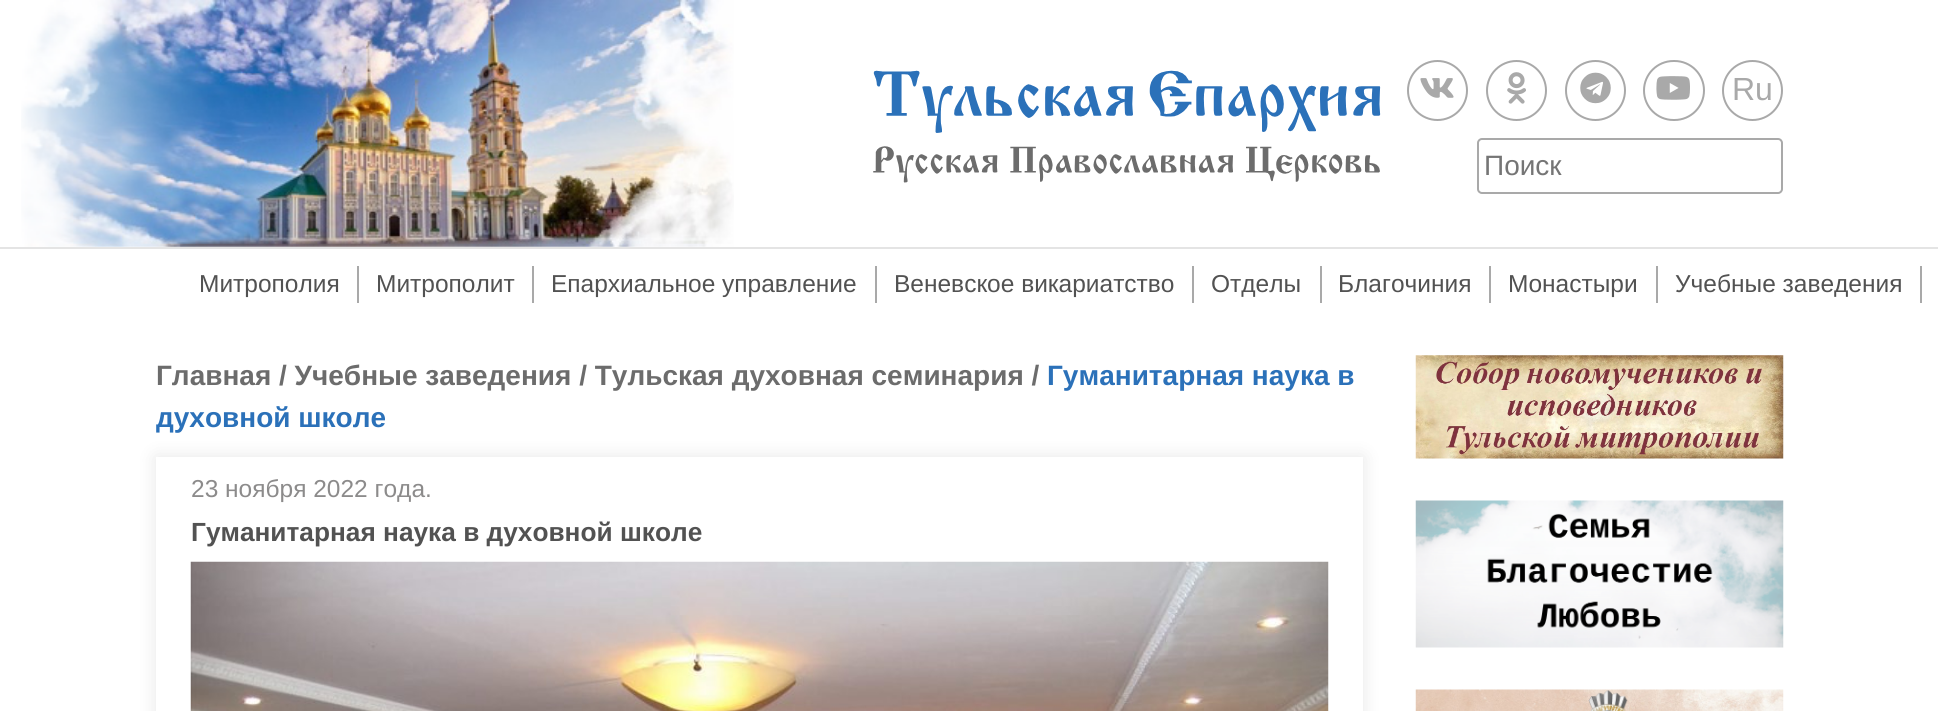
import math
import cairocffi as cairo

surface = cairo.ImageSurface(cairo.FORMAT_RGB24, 1938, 711)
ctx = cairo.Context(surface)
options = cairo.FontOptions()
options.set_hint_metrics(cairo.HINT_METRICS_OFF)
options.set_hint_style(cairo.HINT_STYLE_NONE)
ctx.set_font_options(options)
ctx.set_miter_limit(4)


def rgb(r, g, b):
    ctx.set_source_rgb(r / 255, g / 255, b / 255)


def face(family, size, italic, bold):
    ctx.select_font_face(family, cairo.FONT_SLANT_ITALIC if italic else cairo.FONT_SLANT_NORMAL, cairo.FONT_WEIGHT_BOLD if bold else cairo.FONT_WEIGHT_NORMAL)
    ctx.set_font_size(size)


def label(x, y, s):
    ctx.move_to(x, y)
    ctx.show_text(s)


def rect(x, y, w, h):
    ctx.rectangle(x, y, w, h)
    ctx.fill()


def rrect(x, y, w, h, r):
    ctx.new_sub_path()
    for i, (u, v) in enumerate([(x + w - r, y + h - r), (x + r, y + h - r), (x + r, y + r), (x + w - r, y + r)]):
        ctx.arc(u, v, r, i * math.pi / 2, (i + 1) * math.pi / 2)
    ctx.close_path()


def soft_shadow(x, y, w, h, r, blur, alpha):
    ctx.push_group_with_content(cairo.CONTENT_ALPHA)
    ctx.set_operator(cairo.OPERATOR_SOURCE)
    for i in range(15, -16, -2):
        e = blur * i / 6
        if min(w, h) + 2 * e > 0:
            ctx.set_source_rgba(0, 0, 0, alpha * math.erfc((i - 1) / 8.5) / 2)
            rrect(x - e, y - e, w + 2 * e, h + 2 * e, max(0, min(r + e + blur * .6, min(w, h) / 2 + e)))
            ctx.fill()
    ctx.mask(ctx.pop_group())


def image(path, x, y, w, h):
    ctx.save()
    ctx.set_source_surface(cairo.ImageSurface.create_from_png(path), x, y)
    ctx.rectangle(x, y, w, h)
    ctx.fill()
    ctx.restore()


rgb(255, 255, 255)
ctx.paint()
image('image0.png', 21, 0, 713, 247)
image('image1.png', 873, 70, 508, 113)
ctx.arc(1437.5, 90.5, 29.5, 0, 2 * math.pi)
rgb(169, 169, 169)
ctx.stroke()
image('image2.png', 1420, 78, 34, 20)
ctx.arc(1516.5, 90.5, 29.5, 0, 2 * math.pi)
ctx.stroke()
image('image3.png', 1507, 72, 19, 32)
ctx.arc(1595.5, 90.5, 29.5, 0, 2 * math.pi)
ctx.stroke()
image('image4.png', 1580, 72, 31, 32)
rrect(1644, 61, 60, 59, 29.5)
ctx.stroke()
image('image5.png', 1656, 76, 34, 24)
ctx.arc(1752.5, 90.5, 29.5, 0, 2 * math.pi)
ctx.stroke()
face('Liberation Sans', 32, 0, 0)
label(1732, 100, 'Ru')
rrect(1478, 139, 304, 54, 4)
ctx.stroke()
face('Liberation Sans', 28, 0, 0)
rgb(117, 117, 117)
label(1484, 175, 'Поиск')
rgb(228, 228, 228)
rect(0, 247, 1938, 2)
rgb(169, 169, 169)
rect(357, 266, 2, 37)
face('Liberation Sans', 24.5, 0, 0)
rgb(82, 82, 82)
label(199, 292, 'Митрополия')
rgb(169, 169, 169)
rect(532, 266, 2, 37)
rgb(82, 82, 82)
label(376, 292, 'Митрополит')
rgb(169, 169, 169)
rect(875, 266, 2, 37)
rgb(82, 82, 82)
label(551, 292, 'Епархиальное управление')
rgb(169, 169, 169)
rect(1192, 266, 2, 37)
rgb(82, 82, 82)
label(894, 292, 'Веневское викариатство')
rgb(169, 169, 169)
rect(1320, 266, 2, 37)
rgb(82, 82, 82)
label(1211, 292, 'Отделы')
rgb(169, 169, 169)
rect(1489, 266, 2, 37)
rgb(82, 82, 82)
label(1338, 292, 'Благочиния')
rgb(169, 169, 169)
rect(1656, 266, 2, 37)
rgb(82, 82, 82)
label(1508, 292, 'Монастыри')
rgb(169, 169, 169)
rect(1920, 266, 2, 37)
rgb(82, 82, 82)
label(1675, 292, 'Учебные заведения')
face('Liberation Sans', 28, 0, 1)
rgb(108, 108, 108)
label(156, 385, 'Главная / Учебные заведения / Тульская духовная семинария /')
rgb(43, 113, 185)
label(1047, 385, 'Гуманитарная наука в')
ctx.save()
ctx.set_fill_rule(cairo.FILL_RULE_EVEN_ODD)
ctx.new_path()
ctx.move_to(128, 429)
ctx.line_to(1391, 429)
ctx.line_to(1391, 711)
ctx.line_to(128, 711)
ctx.close_path()
ctx.move_to(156, 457)
ctx.line_to(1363, 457)
ctx.line_to(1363, 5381)
ctx.line_to(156, 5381)
ctx.close_path()
ctx.clip()
rgb(0, 0, 0)
soft_shadow(156, 457, 1207, 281, 0, 9, 0.1)
ctx.restore()
label(156, 427, 'духовной школе')
face('Liberation Sans', 24.5, 0, 0)
rgb(140, 139, 139)
label(191, 497, '23 ноября 2022 года.')
face('Liberation Sans', 26.25, 0, 1)
rgb(82, 82, 82)
label(191, 541, 'Гуманитарная наука в духовной школе')
image('image6.png', 190, 561, 1139, 150)
image('image7.png', 1415, 355, 369, 104)
image('image8.png', 1415, 500, 369, 148)
image('image9.png', 1415, 689, 369, 22)
surface.write_to_png('render.png')
